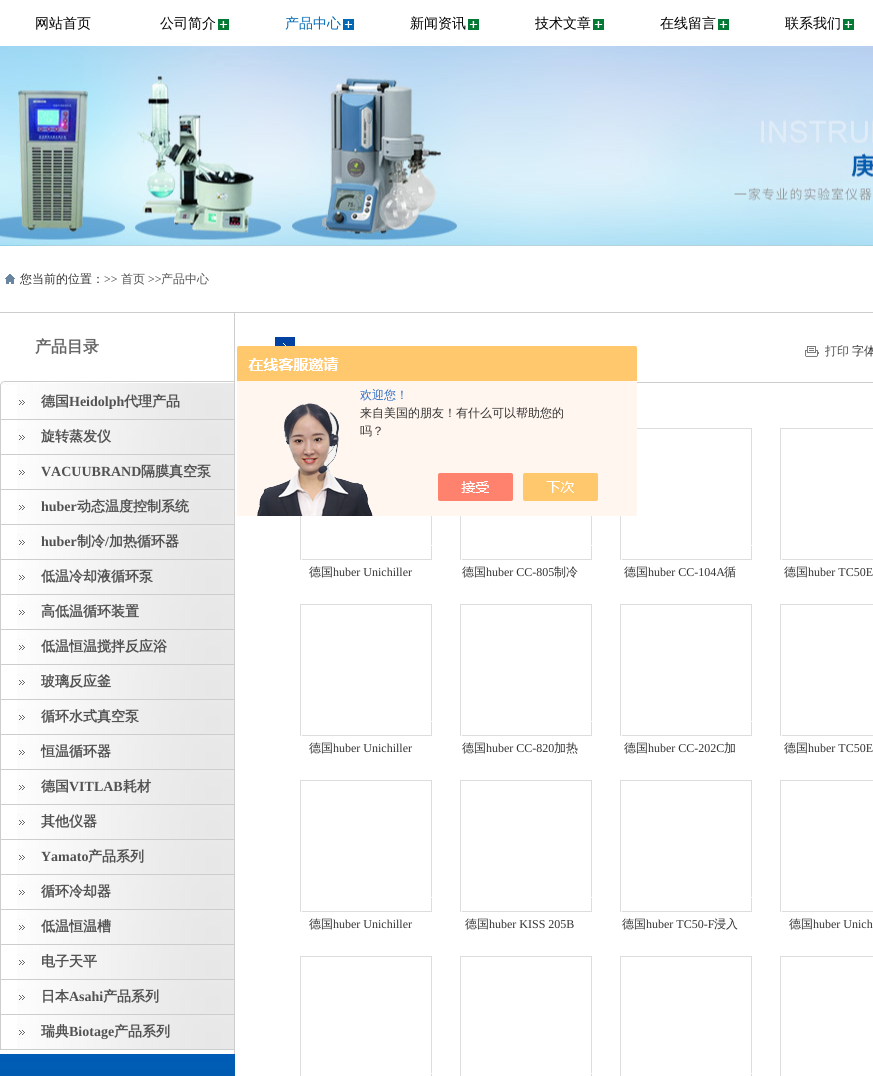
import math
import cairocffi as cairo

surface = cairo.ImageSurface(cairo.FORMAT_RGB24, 873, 1076)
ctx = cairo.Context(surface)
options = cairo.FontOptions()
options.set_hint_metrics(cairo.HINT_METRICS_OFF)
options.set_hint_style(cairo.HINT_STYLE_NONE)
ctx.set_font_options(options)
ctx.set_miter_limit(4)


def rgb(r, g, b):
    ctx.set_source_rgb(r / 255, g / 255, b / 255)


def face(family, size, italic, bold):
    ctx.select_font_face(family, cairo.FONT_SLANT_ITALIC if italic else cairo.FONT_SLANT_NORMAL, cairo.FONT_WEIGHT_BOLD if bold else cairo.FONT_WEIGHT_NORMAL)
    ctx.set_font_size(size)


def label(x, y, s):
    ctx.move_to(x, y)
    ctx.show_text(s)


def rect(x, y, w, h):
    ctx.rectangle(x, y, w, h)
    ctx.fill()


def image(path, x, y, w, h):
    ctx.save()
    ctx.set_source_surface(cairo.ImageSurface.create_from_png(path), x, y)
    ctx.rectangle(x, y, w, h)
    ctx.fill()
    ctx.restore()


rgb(255, 255, 255)
ctx.paint()
face('WenQuanYi Zen Hei Medium', 14, 0, 0)
rgb(0, 0, 0)
label(35, 28, '网站首页')
image('image0.png', 218, 19, 11, 11)
label(160, 28, '公司简介')
image('image1.png', 343, 19, 11, 11)
rgb(0, 105, 181)
label(285, 28, '产品中心')
image('image0.png', 468, 19, 11, 11)
rgb(0, 0, 0)
label(410, 28, '新闻资讯')
image('image0.png', 593, 19, 11, 11)
label(535, 28, '技术文章')
image('image0.png', 718, 19, 11, 11)
label(660, 28, '在线留言')
image('image0.png', 843, 19, 11, 11)
label(785, 28, '联系我们')
image('image2.png', 0, 46, 873, 200)
rgb(205, 205, 205)
rect(0, 312, 873, 1)
image('image3.png', 5, 274, 10, 10)
face('WenQuanYi Zen Hei Medium', 12, 0, 0)
rgb(51, 51, 51)
label(20, 283, '您当前的位置：')
face('Liberation Serif', 12, 0, 0)
label(104, 283, '>>')
face('WenQuanYi Zen Hei Medium', 12, 0, 0)
rgb(82, 82, 82)
label(121, 283, '首页')
face('Liberation Serif', 12, 0, 0)
rgb(51, 51, 51)
label(148, 283, '>>')
face('WenQuanYi Zen Hei Medium', 12, 0, 0)
rgb(82, 82, 82)
label(161, 283, '产品中心')
rgb(205, 205, 205)
rect(234, 313, 1, 741)
face('WenQuanYi Zen Hei', 16, 0, 1)
rgb(102, 102, 102)
label(35, 352, '产品目录')
image('image4.png', 0, 381, 234, 4)
rgb(205, 205, 205)
rect(0, 385, 1, 665)
image('image5.png', 17, 385, 217, 34)
rect(1, 419, 233, 1)
face('WenQuanYi Zen Hei', 14, 0, 1)
rgb(82, 82, 82)
label(41, 406, '德国')
face('Liberation Serif', 14, 0, 1)
label(69, 406, 'Heidolph')
face('WenQuanYi Zen Hei', 14, 0, 1)
label(124, 406, '代理产品')
image('image5.png', 17, 420, 217, 34)
rgb(205, 205, 205)
rect(1, 454, 233, 1)
rgb(82, 82, 82)
label(41, 441, '旋转蒸发仪')
image('image5.png', 17, 455, 217, 34)
rgb(205, 205, 205)
rect(1, 489, 233, 1)
face('Liberation Serif', 14, 0, 1)
rgb(82, 82, 82)
label(41, 476, 'VACUUBRAND')
face('WenQuanYi Zen Hei', 14, 0, 1)
label(141, 476, '隔膜真空泵')
image('image5.png', 17, 490, 217, 34)
rgb(205, 205, 205)
rect(1, 524, 233, 1)
face('Liberation Serif', 14, 0, 1)
rgb(82, 82, 82)
label(41, 511, 'huber')
face('WenQuanYi Zen Hei', 14, 0, 1)
label(77, 511, '动态温度控制系统')
image('image5.png', 17, 525, 217, 34)
rgb(205, 205, 205)
rect(1, 559, 233, 1)
face('Liberation Serif', 14, 0, 1)
rgb(82, 82, 82)
label(41, 546, 'huber')
face('WenQuanYi Zen Hei', 14, 0, 1)
label(77, 546, '制冷')
face('Liberation Serif', 14, 0, 1)
label(105, 546, '/')
face('WenQuanYi Zen Hei', 14, 0, 1)
label(109, 546, '加热循环器')
image('image5.png', 17, 560, 217, 34)
rgb(205, 205, 205)
rect(1, 594, 233, 1)
rgb(82, 82, 82)
label(41, 581, '低温冷却液循环泵')
image('image5.png', 17, 595, 217, 34)
rgb(205, 205, 205)
rect(1, 629, 233, 1)
rgb(82, 82, 82)
label(41, 616, '高低温循环装置')
image('image5.png', 17, 630, 217, 34)
rgb(205, 205, 205)
rect(1, 664, 233, 1)
rgb(82, 82, 82)
label(41, 651, '低温恒温搅拌反应浴')
image('image5.png', 17, 665, 217, 34)
rgb(205, 205, 205)
rect(1, 699, 233, 1)
rgb(82, 82, 82)
label(41, 686, '玻璃反应釜')
image('image5.png', 17, 700, 217, 34)
rgb(205, 205, 205)
rect(1, 734, 233, 1)
rgb(82, 82, 82)
label(41, 721, '循环水式真空泵')
image('image5.png', 17, 735, 217, 34)
rgb(205, 205, 205)
rect(1, 769, 233, 1)
rgb(82, 82, 82)
label(41, 756, '恒温循环器')
image('image5.png', 17, 770, 217, 34)
rgb(205, 205, 205)
rect(1, 804, 233, 1)
rgb(82, 82, 82)
label(41, 791, '德国')
face('Liberation Serif', 14, 0, 1)
label(69, 791, 'VITLAB')
face('WenQuanYi Zen Hei', 14, 0, 1)
label(123, 791, '耗材')
image('image5.png', 17, 805, 217, 34)
rgb(205, 205, 205)
rect(1, 839, 233, 1)
rgb(82, 82, 82)
label(41, 826, '其他仪器')
image('image5.png', 17, 840, 217, 34)
rgb(205, 205, 205)
rect(1, 874, 233, 1)
face('Liberation Serif', 14, 0, 1)
rgb(82, 82, 82)
label(41, 861, 'Yamato')
face('WenQuanYi Zen Hei', 14, 0, 1)
label(88, 861, '产品系列')
image('image5.png', 17, 875, 217, 34)
rgb(205, 205, 205)
rect(1, 909, 233, 1)
rgb(82, 82, 82)
label(41, 896, '循环冷却器')
image('image5.png', 17, 910, 217, 34)
rgb(205, 205, 205)
rect(1, 944, 233, 1)
rgb(82, 82, 82)
label(41, 931, '低温恒温槽')
image('image5.png', 17, 945, 217, 34)
rgb(205, 205, 205)
rect(1, 979, 233, 1)
rgb(82, 82, 82)
label(41, 966, '电子天平')
image('image5.png', 17, 980, 217, 34)
rgb(205, 205, 205)
rect(1, 1014, 233, 1)
rgb(82, 82, 82)
label(41, 1001, '日本')
face('Liberation Serif', 14, 0, 1)
label(69, 1001, 'Asahi')
face('WenQuanYi Zen Hei', 14, 0, 1)
label(103, 1001, '产品系列')
image('image5.png', 17, 1015, 217, 34)
rgb(205, 205, 205)
rect(1, 1049, 233, 1)
rgb(82, 82, 82)
label(41, 1036, '瑞典')
face('Liberation Serif', 14, 0, 1)
label(69, 1036, 'Biotage')
face('WenQuanYi Zen Hei', 14, 0, 1)
label(114, 1036, '产品系列')
image('image6.png', 0, 1054, 235, 22)
rgb(205, 205, 205)
rect(637, 382, 236, 1)
image('image7.png', 275, 337, 20, 9)
image('image8.png', 805, 346, 14, 11)
face('WenQuanYi Zen Hei Medium', 12, 0, 0)
rgb(82, 82, 82)
label(825, 355, '打印')
rgb(51, 51, 51)
label(852, 355, '字体')
ctx.rectangle(300.5, 428.5, 131, 131)
rgb(221, 221, 221)
ctx.set_line_width(1)
ctx.stroke()
ctx.rectangle(301.5, 545.5, 131, 15)
rgb(255, 255, 255)
ctx.stroke()
rgb(51, 51, 51)
label(309, 576, '德国')
face('Liberation Serif', 12, 0, 0)
label(333, 576, 'huber Unichiller')
ctx.rectangle(460.5, 428.5, 131, 131)
rgb(221, 221, 221)
ctx.stroke()
ctx.rectangle(461.5, 545.5, 131, 15)
rgb(255, 255, 255)
ctx.stroke()
face('WenQuanYi Zen Hei Medium', 12, 0, 0)
rgb(51, 51, 51)
label(462, 576, '德国')
face('Liberation Serif', 12, 0, 0)
label(486, 576, 'huber CC-805')
face('WenQuanYi Zen Hei Medium', 12, 0, 0)
label(554, 576, '制冷')
ctx.rectangle(620.5, 428.5, 131, 131)
rgb(221, 221, 221)
ctx.stroke()
ctx.rectangle(621.5, 545.5, 131, 15)
rgb(255, 255, 255)
ctx.stroke()
rgb(51, 51, 51)
label(624, 576, '德国')
face('Liberation Serif', 12, 0, 0)
label(648, 576, 'huber CC-104A')
face('WenQuanYi Zen Hei Medium', 12, 0, 0)
label(724, 576, '循')
ctx.rectangle(780.5, 428.5, 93, 131)
rgb(221, 221, 221)
ctx.stroke()
ctx.rectangle(781.5, 545.5, 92, 15)
rgb(255, 255, 255)
ctx.stroke()
rgb(51, 51, 51)
label(784, 576, '德国')
face('Liberation Serif', 12, 0, 0)
label(808, 576, 'huber TC50E')
ctx.rectangle(300.5, 604.5, 131, 131)
rgb(221, 221, 221)
ctx.stroke()
ctx.rectangle(301.5, 721.5, 131, 15)
rgb(255, 255, 255)
ctx.stroke()
face('WenQuanYi Zen Hei Medium', 12, 0, 0)
rgb(51, 51, 51)
label(309, 752, '德国')
face('Liberation Serif', 12, 0, 0)
label(333, 752, 'huber Unichiller')
ctx.rectangle(460.5, 604.5, 131, 131)
rgb(221, 221, 221)
ctx.stroke()
ctx.rectangle(461.5, 721.5, 131, 15)
rgb(255, 255, 255)
ctx.stroke()
face('WenQuanYi Zen Hei Medium', 12, 0, 0)
rgb(51, 51, 51)
label(462, 752, '德国')
face('Liberation Serif', 12, 0, 0)
label(486, 752, 'huber CC-820')
face('WenQuanYi Zen Hei Medium', 12, 0, 0)
label(554, 752, '加热')
ctx.rectangle(620.5, 604.5, 131, 131)
rgb(221, 221, 221)
ctx.stroke()
ctx.rectangle(621.5, 721.5, 131, 15)
rgb(255, 255, 255)
ctx.stroke()
rgb(51, 51, 51)
label(624, 752, '德国')
face('Liberation Serif', 12, 0, 0)
label(648, 752, 'huber CC-202C')
face('WenQuanYi Zen Hei Medium', 12, 0, 0)
label(724, 752, '加')
ctx.rectangle(780.5, 604.5, 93, 131)
rgb(221, 221, 221)
ctx.stroke()
ctx.rectangle(781.5, 721.5, 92, 15)
rgb(255, 255, 255)
ctx.stroke()
rgb(51, 51, 51)
label(784, 752, '德国')
face('Liberation Serif', 12, 0, 0)
label(808, 752, 'huber TC50E')
ctx.rectangle(300.5, 780.5, 131, 131)
rgb(221, 221, 221)
ctx.stroke()
ctx.rectangle(301.5, 897.5, 131, 15)
rgb(255, 255, 255)
ctx.stroke()
face('WenQuanYi Zen Hei Medium', 12, 0, 0)
rgb(51, 51, 51)
label(309, 928, '德国')
face('Liberation Serif', 12, 0, 0)
label(333, 928, 'huber Unichiller')
ctx.rectangle(460.5, 780.5, 131, 131)
rgb(221, 221, 221)
ctx.stroke()
ctx.rectangle(461.5, 897.5, 131, 15)
rgb(255, 255, 255)
ctx.stroke()
face('WenQuanYi Zen Hei Medium', 12, 0, 0)
rgb(51, 51, 51)
label(465, 928, '德国')
face('Liberation Serif', 12, 0, 0)
label(489, 928, 'huber KISS 205B')
ctx.rectangle(620.5, 780.5, 131, 131)
rgb(221, 221, 221)
ctx.stroke()
ctx.rectangle(621.5, 897.5, 131, 15)
rgb(255, 255, 255)
ctx.stroke()
face('WenQuanYi Zen Hei Medium', 12, 0, 0)
rgb(51, 51, 51)
label(622, 928, '德国')
face('Liberation Serif', 12, 0, 0)
label(646, 928, 'huber TC50-F')
face('WenQuanYi Zen Hei Medium', 12, 0, 0)
label(714, 928, '浸入')
ctx.rectangle(780.5, 780.5, 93, 131)
rgb(221, 221, 221)
ctx.stroke()
ctx.rectangle(781.5, 897.5, 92, 15)
rgb(255, 255, 255)
ctx.stroke()
rgb(51, 51, 51)
label(789, 928, '德国')
face('Liberation Serif', 12, 0, 0)
label(813, 928, 'huber Unich')
ctx.rectangle(300.5, 956.5, 131, 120)
rgb(221, 221, 221)
ctx.stroke()
ctx.rectangle(301.5, 1073.5, 131, 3)
rgb(255, 255, 255)
ctx.stroke()
ctx.rectangle(460.5, 956.5, 131, 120)
rgb(221, 221, 221)
ctx.stroke()
ctx.rectangle(461.5, 1073.5, 131, 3)
rgb(255, 255, 255)
ctx.stroke()
ctx.rectangle(620.5, 956.5, 131, 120)
rgb(221, 221, 221)
ctx.stroke()
ctx.rectangle(621.5, 1073.5, 131, 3)
rgb(255, 255, 255)
ctx.stroke()
ctx.rectangle(780.5, 956.5, 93, 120)
rgb(221, 221, 221)
ctx.stroke()
image('image9.png', 237, 346, 400, 170)
face('WenQuanYi Zen Hei Medium', 12, 0, 0)
rgb(46, 110, 198)
label(360, 399, '欢迎您！')
rgb(51, 51, 51)
label(360, 417, '来自美国的朋友！有什么可以帮助您的')
label(360, 435, '吗？')
surface.write_to_png('render.png')
